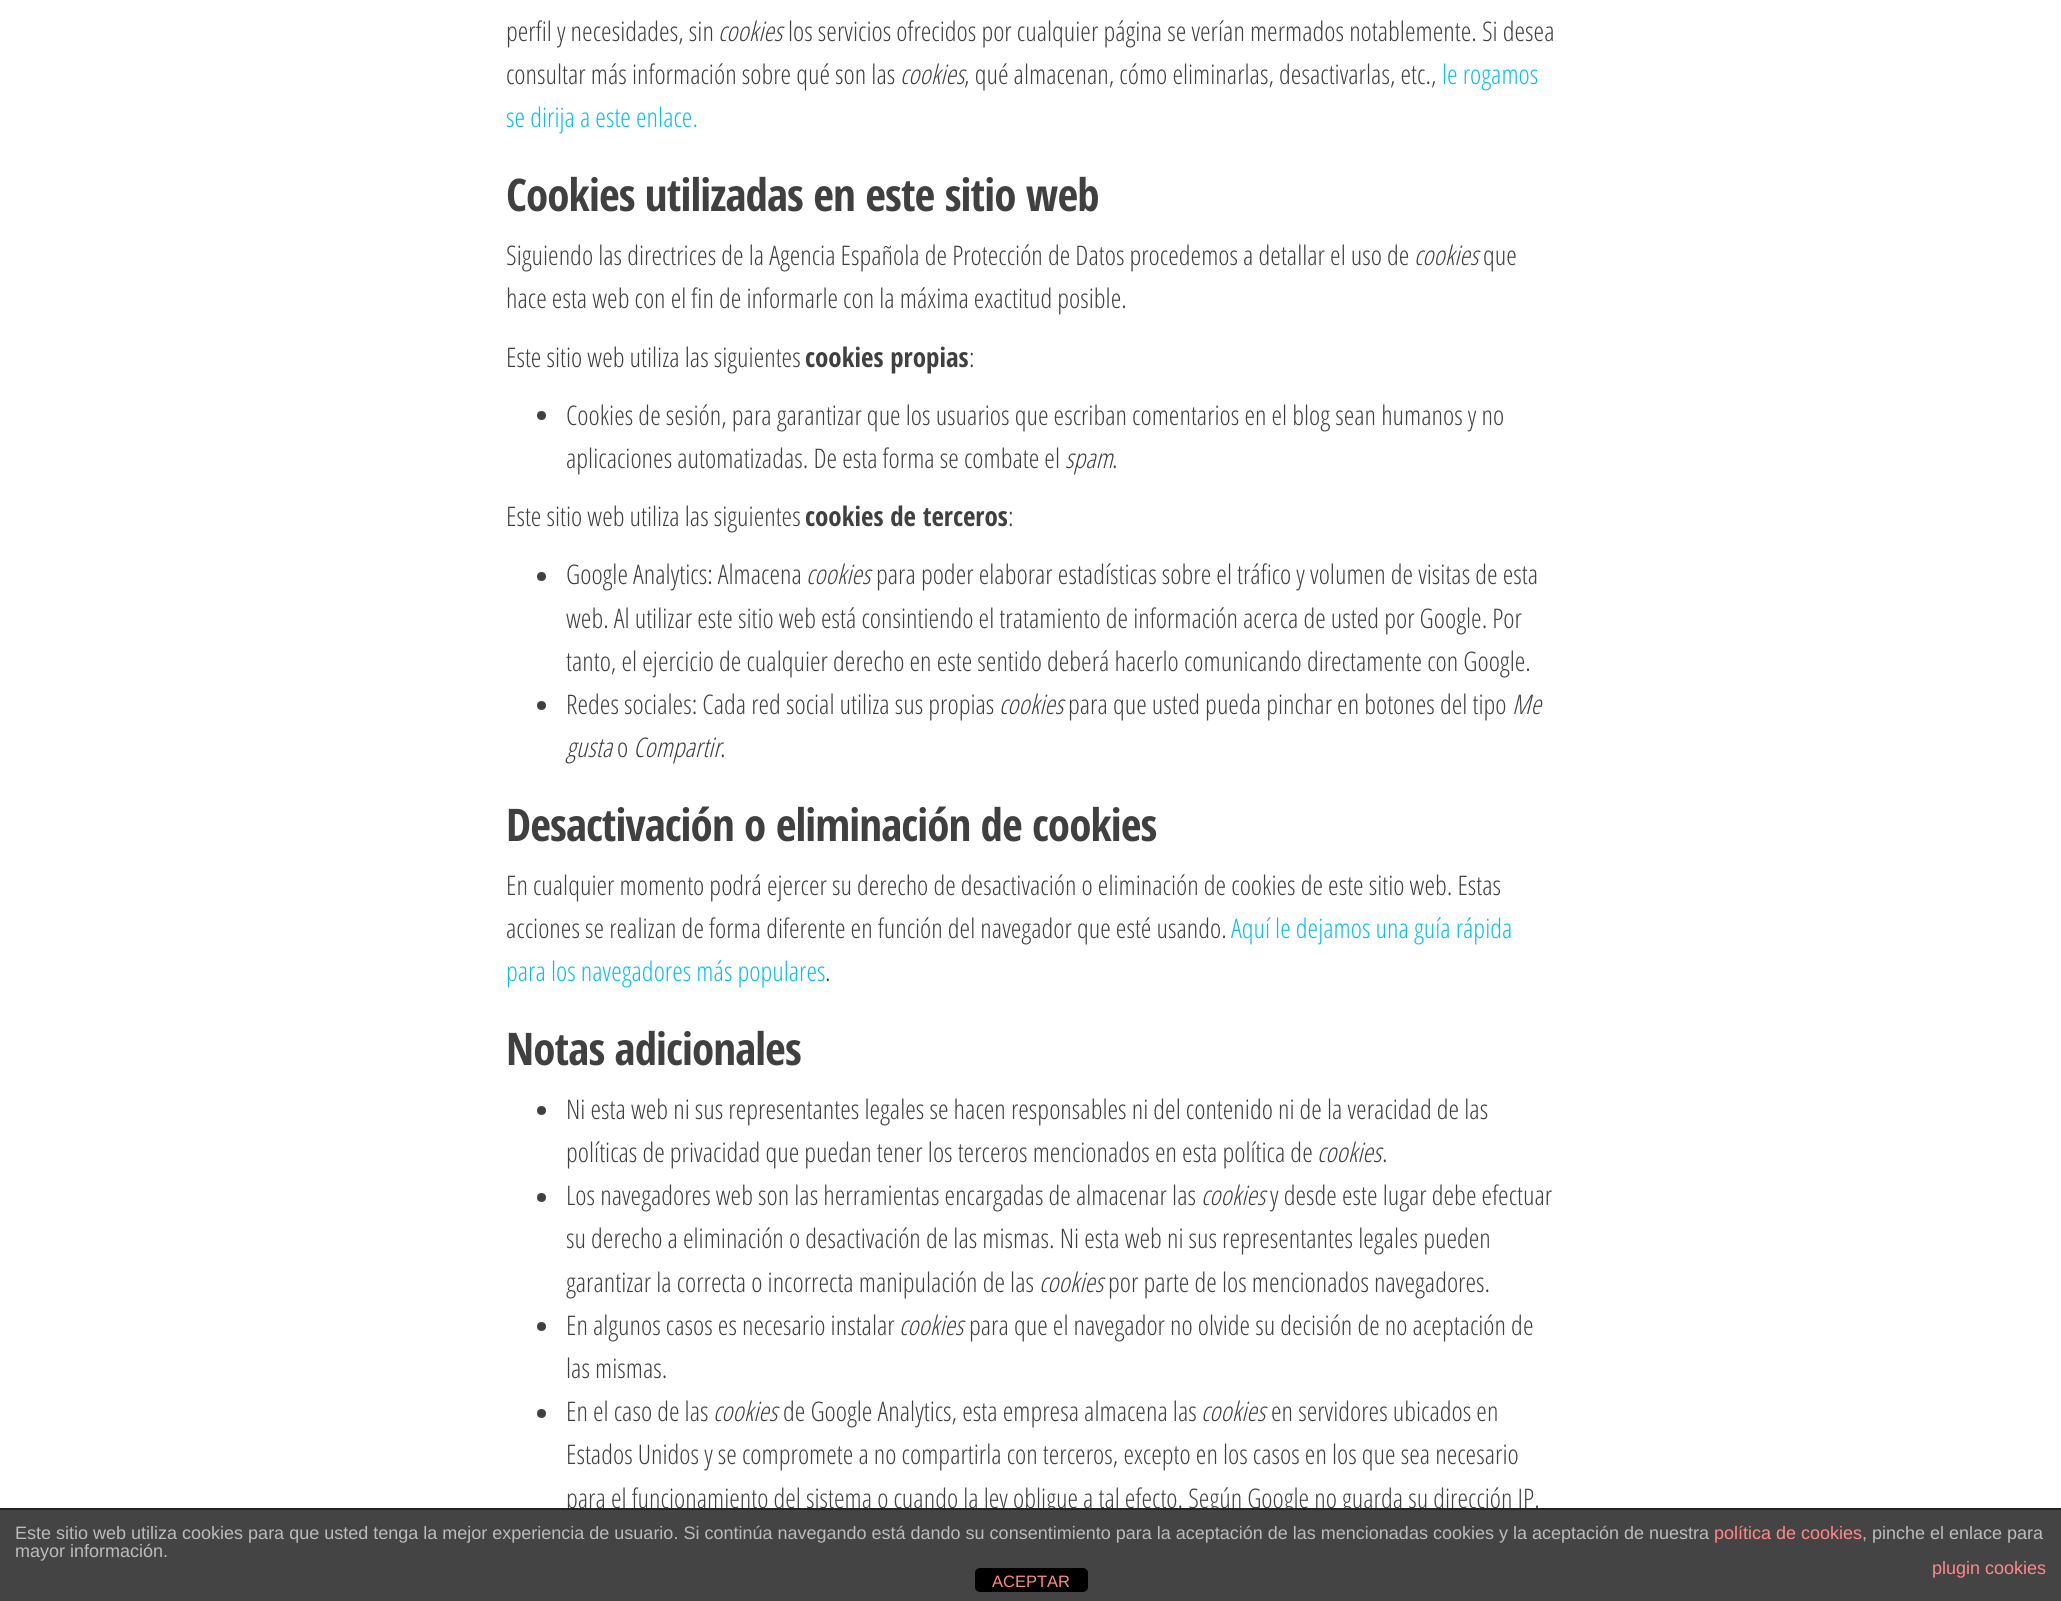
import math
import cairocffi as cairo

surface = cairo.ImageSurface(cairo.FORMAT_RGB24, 2061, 1601)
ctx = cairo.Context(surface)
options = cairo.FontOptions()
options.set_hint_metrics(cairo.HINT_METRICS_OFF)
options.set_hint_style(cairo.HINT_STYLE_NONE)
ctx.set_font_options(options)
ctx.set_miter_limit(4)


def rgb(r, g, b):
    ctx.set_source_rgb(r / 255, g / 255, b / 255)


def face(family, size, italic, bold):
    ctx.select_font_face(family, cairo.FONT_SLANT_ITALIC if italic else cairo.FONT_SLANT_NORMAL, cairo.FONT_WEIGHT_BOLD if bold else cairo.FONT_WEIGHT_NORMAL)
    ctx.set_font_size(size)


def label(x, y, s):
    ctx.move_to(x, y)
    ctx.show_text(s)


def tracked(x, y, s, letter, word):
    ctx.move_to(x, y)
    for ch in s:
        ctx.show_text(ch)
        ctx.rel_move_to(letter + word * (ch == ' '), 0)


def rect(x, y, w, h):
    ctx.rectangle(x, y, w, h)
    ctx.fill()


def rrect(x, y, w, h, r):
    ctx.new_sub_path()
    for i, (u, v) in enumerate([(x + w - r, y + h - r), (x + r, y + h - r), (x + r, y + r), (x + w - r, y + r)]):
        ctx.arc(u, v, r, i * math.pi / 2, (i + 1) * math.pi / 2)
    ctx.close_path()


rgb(255, 255, 255)
ctx.paint()
face('Open Sans Condensed Light', 27, 0, 0)
rgb(64, 64, 64)
label(506, 41, 'perfil y necesidades, sin')
face('Open Sans Condensed Light', 27, 1, 0)
label(718, 41, 'cookies')
face('Open Sans Condensed Light', 27, 0, 0)
label(788, 41, 'los servicios ofrecidos por cualquier página se verían mermados notablemente. Si desea')
label(506, 84, 'consultar más información sobre qué son las')
face('Open Sans Condensed Light', 27, 1, 0)
label(900, 84, 'cookies')
face('Open Sans Condensed Light', 27, 0, 0)
label(964, 84, ', qué almacenan, cómo eliminarlas, desactivarlas, etc.,')
rgb(7, 188, 253)
label(1442, 84, 'le rogamos')
label(506, 127, 'se dirija a este enlace.')
face('Open Sans Condensed', 45, 0, 1)
rgb(64, 64, 64)
tracked(506, 211, 'Cookies utilizadas en este sitio web', -0.9, 0)
face('Open Sans Condensed Light', 27, 0, 0)
label(506, 265, 'Siguiendo las directrices de la Agencia Española de Protección de Datos procedemos a detallar el uso de')
face('Open Sans Condensed Light', 27, 1, 0)
label(1414, 265, 'cookies')
face('Open Sans Condensed Light', 27, 0, 0)
label(1483, 265, 'que')
label(506, 308, 'hace esta web con el fin de informarle con la máxima exactitud posible.')
label(506, 367, 'Este sitio web utiliza las siguientes')
face('Open Sans Condensed', 27, 0, 1)
label(805, 367, 'cookies propias')
face('Open Sans Condensed Light', 27, 0, 0)
label(969, 367, ':')
ctx.new_path()
ctx.arc(541.5, 415.5, 4.5, 0, 2 * math.pi)
ctx.fill()
label(566, 425, 'Cookies de sesión, para garantizar que los usuarios que escriban comentarios en el blog sean humanos y no')
label(566, 468, 'aplicaciones automatizadas. De esta forma se combate el')
face('Open Sans Condensed Light', 27, 1, 0)
label(1065, 468, 'spam')
face('Open Sans Condensed Light', 27, 0, 0)
label(1112, 468, '.')
label(506, 526, 'Este sitio web utiliza las siguientes')
face('Open Sans Condensed', 27, 0, 1)
label(805, 526, 'cookies de terceros')
face('Open Sans Condensed Light', 27, 0, 0)
label(1008, 526, ':')
ctx.new_path()
ctx.arc(541.5, 576.5, 4.5, 0, 2 * math.pi)
ctx.fill()
label(566, 584, 'Google Analytics: Almacena')
face('Open Sans Condensed Light', 27, 1, 0)
label(806, 584, 'cookies')
face('Open Sans Condensed Light', 27, 0, 0)
label(876, 584, 'para poder elaborar estadísticas sobre el tráfico y volumen de visitas de esta')
label(566, 628, 'web. Al utilizar este sitio web está consintiendo el tratamiento de información acerca de usted por Google. Por')
label(566, 671, 'tanto, el ejercicio de cualquier derecho en este sentido deberá hacerlo comunicando directamente con Google.')
ctx.new_path()
ctx.arc(541.5, 705.5, 4.5, 0, 2 * math.pi)
ctx.fill()
label(566, 714, 'Redes sociales: Cada red social utiliza sus propias')
face('Open Sans Condensed Light', 27, 1, 0)
label(999, 714, 'cookies')
face('Open Sans Condensed Light', 27, 0, 0)
label(1068, 714, 'para que usted pueda pinchar en botones del tipo')
face('Open Sans Condensed Light', 27, 1, 0)
label(1512, 714, 'Me')
label(566, 757, 'gusta')
face('Open Sans Condensed Light', 27, 0, 0)
label(617, 757, 'o')
face('Open Sans Condensed Light', 27, 1, 0)
label(633, 757, 'Compartir')
face('Open Sans Condensed Light', 27, 0, 0)
label(720, 757, '.')
face('Open Sans Condensed', 45, 0, 1)
tracked(506, 841, 'Desactivación o eliminación de cookies', -0.9, 0)
face('Open Sans Condensed Light', 27, 0, 0)
label(506, 895, 'En cualquier momento podrá ejercer su derecho de desactivación o eliminación de cookies de este sitio web. Estas')
label(506, 938, 'acciones se realizan de forma diferente en función del navegador que esté usando.')
rgb(7, 188, 253)
label(1231, 938, 'Aquí le dejamos una guía rápida')
label(506, 981, 'para los navegadores más populares')
rgb(64, 64, 64)
label(825, 981, '.')
face('Open Sans Condensed', 45, 0, 1)
tracked(506, 1065, 'Notas adicionales', -0.9, 0)
ctx.new_path()
ctx.arc(541.5, 1110.5, 4.5, 0, 2 * math.pi)
ctx.fill()
face('Open Sans Condensed Light', 27, 0, 0)
label(566, 1119, 'Ni esta web ni sus representantes legales se hacen responsables ni del contenido ni de la veracidad de las')
label(566, 1162, 'políticas de privacidad que puedan tener los terceros mencionados en esta política de')
face('Open Sans Condensed Light', 27, 1, 0)
label(1317, 1162, 'cookies')
face('Open Sans Condensed Light', 27, 0, 0)
label(1382, 1162, '.')
ctx.new_path()
ctx.arc(541.5, 1197.5, 4.5, 0, 2 * math.pi)
ctx.fill()
label(566, 1205, 'Los navegadores web son las herramientas encargadas de almacenar las')
face('Open Sans Condensed Light', 27, 1, 0)
label(1201, 1205, 'cookies')
face('Open Sans Condensed Light', 27, 0, 0)
label(1270, 1205, 'y desde este lugar debe efectuar')
label(566, 1248, 'su derecho a eliminación o desactivación de las mismas. Ni esta web ni sus representantes legales pueden')
label(566, 1292, 'garantizar la correcta o incorrecta manipulación de las')
face('Open Sans Condensed Light', 27, 1, 0)
label(1039, 1292, 'cookies')
face('Open Sans Condensed Light', 27, 0, 0)
label(1108, 1292, 'por parte de los mencionados navegadores.')
ctx.new_path()
ctx.arc(541.5, 1326.5, 4.5, 0, 2 * math.pi)
ctx.fill()
label(566, 1335, 'En algunos casos es necesario instalar')
face('Open Sans Condensed Light', 27, 1, 0)
label(899, 1335, 'cookies')
face('Open Sans Condensed Light', 27, 0, 0)
label(969, 1335, 'para que el navegador no olvide su decisión de no aceptación de')
label(566, 1378, 'las mismas.')
ctx.new_path()
ctx.arc(541.5, 1413.5, 4.5, 0, 2 * math.pi)
ctx.fill()
label(566, 1421, 'En el caso de las')
face('Open Sans Condensed Light', 27, 1, 0)
label(713, 1421, 'cookies')
face('Open Sans Condensed Light', 27, 0, 0)
label(783, 1421, 'de Google Analytics, esta empresa almacena las')
face('Open Sans Condensed Light', 27, 1, 0)
label(1201, 1421, 'cookies')
face('Open Sans Condensed Light', 27, 0, 0)
label(1271, 1421, 'en servidores ubicados en')
label(566, 1464, 'Estados Unidos y se compromete a no compartirla con terceros, excepto en los casos en los que sea necesario')
label(566, 1508, 'para el funcionamiento del sistema o cuando la ley obligue a tal efecto. Según Google no guarda su dirección IP.')
rgb(68, 68, 68)
rect(0, 1510, 2061, 91)
rgb(34, 34, 34)
rect(0, 1508, 2061, 2)
face('Liberation Sans', 18, 0, 0)
rgb(187, 187, 187)
label(15, 1539, 'Este sitio web utiliza cookies para que usted tenga la mejor experiencia de usuario. Si continúa navegando está dando su consentimiento para la aceptación de las mencionadas cookies y la aceptación de nuestra')
rgb(255, 136, 136)
label(1714, 1539, 'política de cookies')
rgb(187, 187, 187)
label(1862, 1539, ', pinche el enlace para')
label(15, 1557, 'mayor información.')
rgb(255, 136, 136)
label(1932, 1574, 'plugin cookies')
rgb(0, 0, 0)
rrect(975, 1568, 113, 24, 5)
ctx.fill()
face('Liberation Sans', 16.5, 0, 0)
rgb(255, 136, 136)
label(992, 1587, 'ACEPTAR')
surface.write_to_png('render.png')
